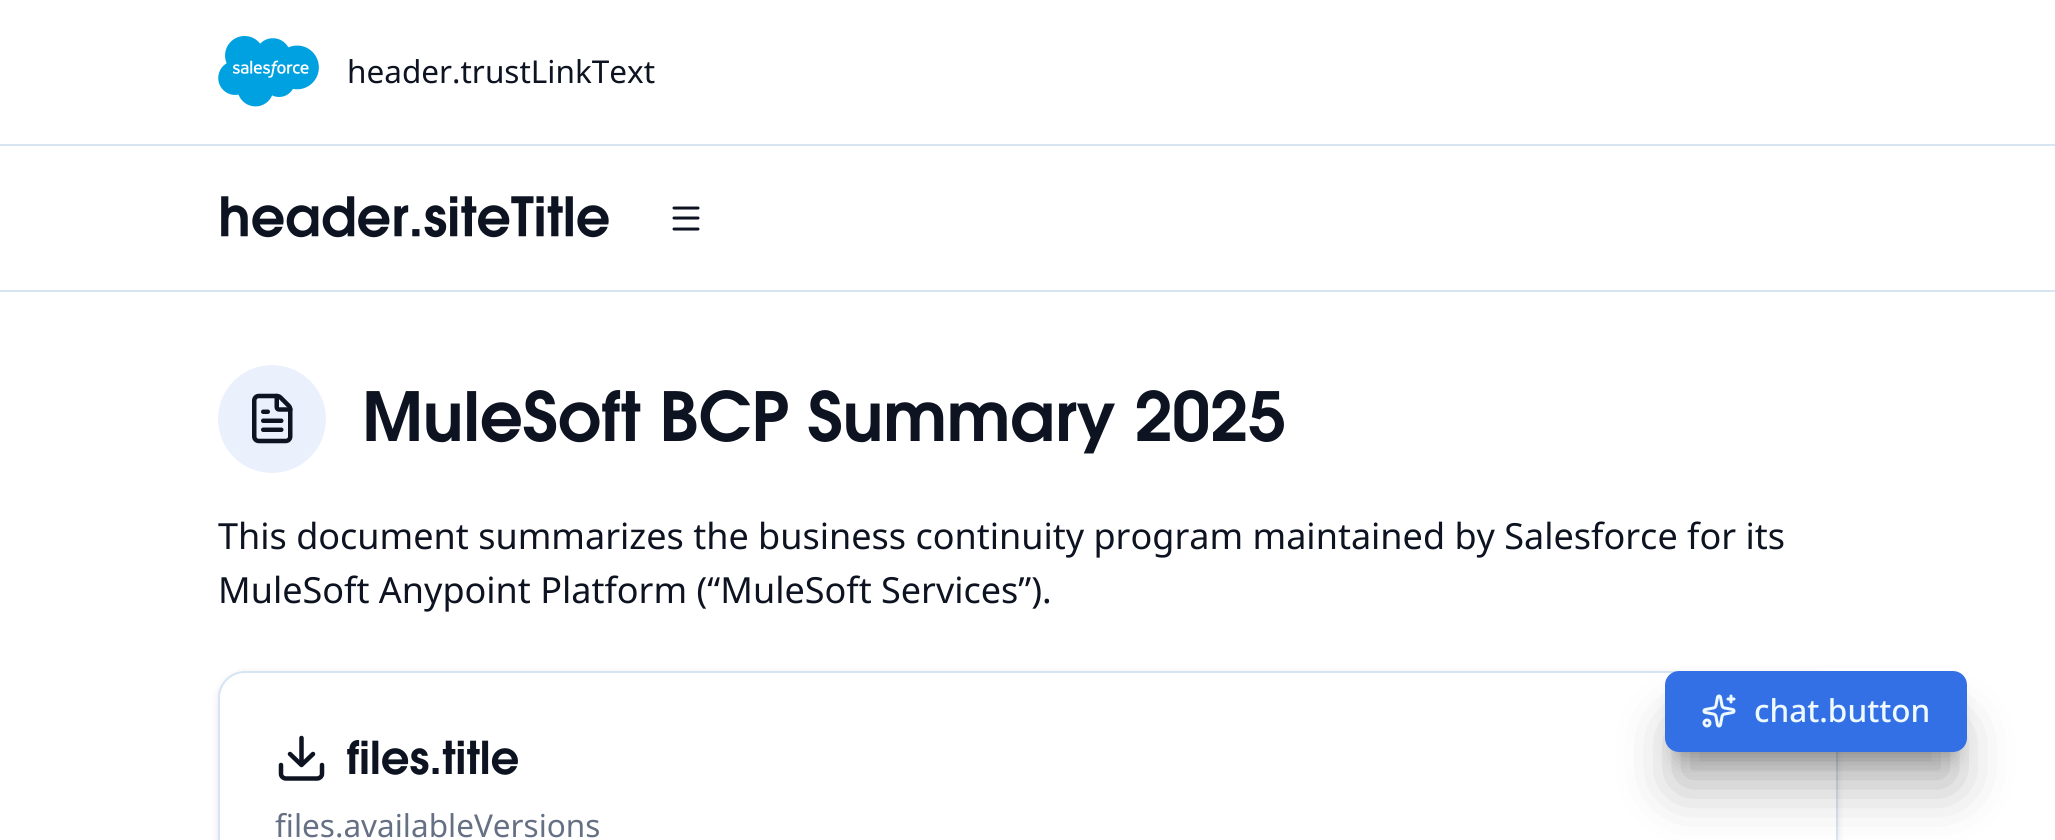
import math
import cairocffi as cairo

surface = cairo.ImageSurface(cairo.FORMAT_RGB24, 2055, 840)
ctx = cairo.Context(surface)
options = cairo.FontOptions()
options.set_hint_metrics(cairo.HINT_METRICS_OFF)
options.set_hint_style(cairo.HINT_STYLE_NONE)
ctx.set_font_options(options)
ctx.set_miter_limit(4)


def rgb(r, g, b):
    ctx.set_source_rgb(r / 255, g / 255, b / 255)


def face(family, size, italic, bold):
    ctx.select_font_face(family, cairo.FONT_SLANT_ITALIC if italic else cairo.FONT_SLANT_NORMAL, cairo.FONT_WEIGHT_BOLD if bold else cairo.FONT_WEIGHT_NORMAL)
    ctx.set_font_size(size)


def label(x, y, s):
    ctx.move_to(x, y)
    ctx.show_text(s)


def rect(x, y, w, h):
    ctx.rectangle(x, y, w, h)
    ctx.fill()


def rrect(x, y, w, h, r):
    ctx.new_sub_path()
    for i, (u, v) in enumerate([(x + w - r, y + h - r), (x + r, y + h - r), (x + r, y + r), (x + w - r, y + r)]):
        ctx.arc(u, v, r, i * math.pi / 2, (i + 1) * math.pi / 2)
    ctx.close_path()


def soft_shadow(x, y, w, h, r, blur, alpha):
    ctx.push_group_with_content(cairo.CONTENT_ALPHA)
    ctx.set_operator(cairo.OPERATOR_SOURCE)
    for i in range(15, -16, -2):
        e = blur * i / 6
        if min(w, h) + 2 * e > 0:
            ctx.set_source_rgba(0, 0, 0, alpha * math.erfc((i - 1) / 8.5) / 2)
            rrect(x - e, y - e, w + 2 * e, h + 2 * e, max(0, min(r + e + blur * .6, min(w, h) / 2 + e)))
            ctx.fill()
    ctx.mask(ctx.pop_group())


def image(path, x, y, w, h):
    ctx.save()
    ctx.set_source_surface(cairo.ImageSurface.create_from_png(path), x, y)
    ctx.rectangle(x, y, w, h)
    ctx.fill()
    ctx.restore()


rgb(255, 255, 255)
ctx.paint()
rgb(215, 228, 241)
rect(0, 144, 2055, 2)
image('image0.png', 218, 36, 101, 71)
face('Noto Sans', 31.5, 0, 0)
rgb(13, 19, 33)
label(347, 83, 'header.trustLinkText')
rgb(215, 228, 241)
rect(0, 290, 2055, 2)
image('image1.png', 221, 196, 388, 42)
ctx.new_path()
ctx.move_to(674, 208)
ctx.line_to(698, 208)
ctx.move_to(674, 218)
ctx.line_to(698, 218)
ctx.move_to(674, 229)
ctx.line_to(698, 229)
rgb(13, 19, 33)
ctx.set_line_width(3)
ctx.set_line_cap(cairo.LINE_CAP_ROUND)
ctx.set_line_join(cairo.LINE_JOIN_ROUND)
ctx.stroke()
rgb(235, 241, 252)
ctx.arc(272, 419, 54, 0, 2 * math.pi)
ctx.fill()
image('image2.png', 252, 393, 41, 51)
image('image3.png', 366, 390, 918, 64)
face('Noto Sans', 36, 0, 0)
rgb(13, 19, 33)
label(218, 549, 'This document summarizes the business continuity program maintained by Salesforce for its')
label(218, 603, 'MuleSoft Anypoint Platform (“MuleSoft Services”).')
rgb(0, 0, 0)
soft_shadow(218, 673, 1620, 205, 27, 3.5, 0.1)
rgb(255, 255, 255)
rrect(219, 672, 1618, 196, 26)
ctx.fill_preserve()
rgb(215, 228, 241)
ctx.set_line_width(2)
ctx.set_line_cap(cairo.LINE_CAP_BUTT)
ctx.set_line_join(cairo.LINE_JOIN_MITER)
ctx.stroke()
ctx.new_path()
ctx.move_to(301.5, 765)
ctx.line_to(301.5, 738)
ctx.move_to(322, 765)
ctx.line_to(322, 774)
ctx.curve_to(322, 776.5, 319.5, 778.5, 317, 778.5)
ctx.line_to(286, 778.5)
ctx.curve_to(283.5, 778.5, 281, 776.5, 281, 774)
ctx.line_to(281, 765)
ctx.move_to(290, 754)
ctx.line_to(301.5, 765)
ctx.line_to(313, 754)
rgb(13, 19, 33)
ctx.set_line_width(4.5)
ctx.set_line_cap(cairo.LINE_CAP_ROUND)
ctx.set_line_join(cairo.LINE_JOIN_ROUND)
ctx.stroke()
image('image4.png', 347, 740, 171, 35)
face('Noto Sans', 31.5, 0, 0)
rgb(102, 112, 132)
label(275, 837, 'files.availableVersions')
rgb(0, 0, 0)
soft_shadow(1679, 702, 274, 54, 0, 11, 0.3)
soft_shadow(1676, 727, 279, 58, 2, 28, 0.3)
rgb(52, 112, 229)
rrect(1665, 671, 302, 81, 14)
ctx.fill()
image('image5.png', 1702, 694, 34, 34)
face('Noto Sans Medium', 31.5, 0, 0)
rgb(238, 250, 255)
label(1754, 722, 'chat.button')
surface.write_to_png('render.png')
